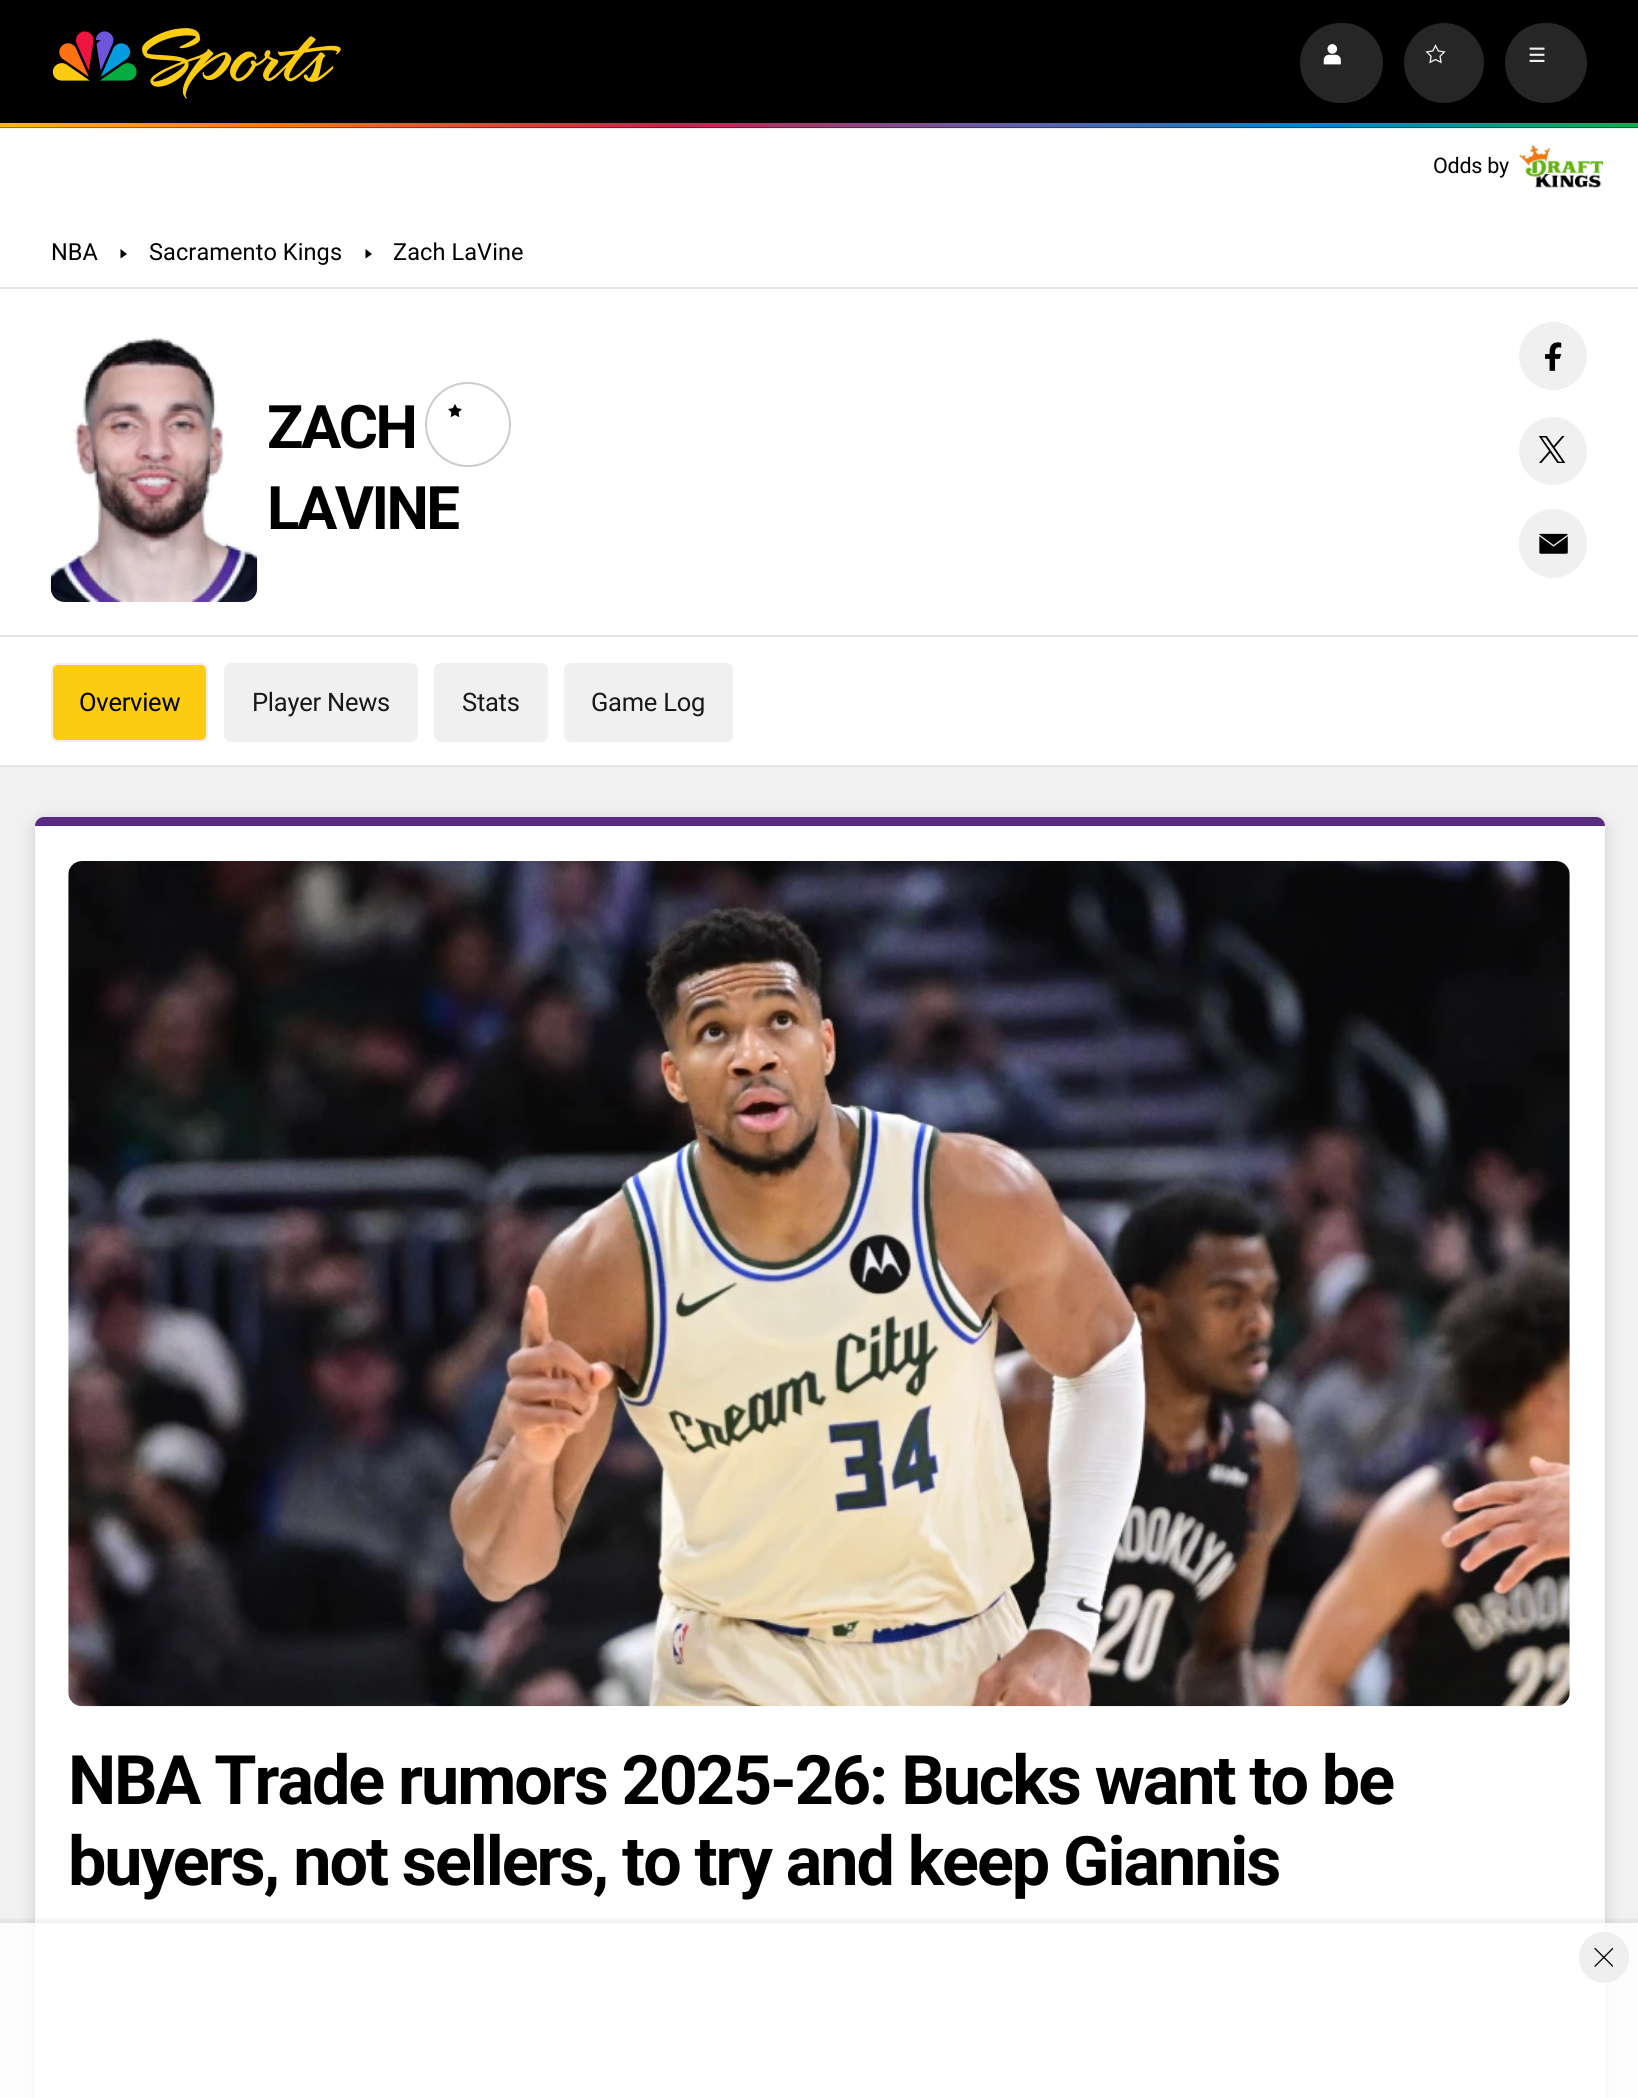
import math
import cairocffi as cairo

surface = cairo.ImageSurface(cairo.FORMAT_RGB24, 1638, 2098)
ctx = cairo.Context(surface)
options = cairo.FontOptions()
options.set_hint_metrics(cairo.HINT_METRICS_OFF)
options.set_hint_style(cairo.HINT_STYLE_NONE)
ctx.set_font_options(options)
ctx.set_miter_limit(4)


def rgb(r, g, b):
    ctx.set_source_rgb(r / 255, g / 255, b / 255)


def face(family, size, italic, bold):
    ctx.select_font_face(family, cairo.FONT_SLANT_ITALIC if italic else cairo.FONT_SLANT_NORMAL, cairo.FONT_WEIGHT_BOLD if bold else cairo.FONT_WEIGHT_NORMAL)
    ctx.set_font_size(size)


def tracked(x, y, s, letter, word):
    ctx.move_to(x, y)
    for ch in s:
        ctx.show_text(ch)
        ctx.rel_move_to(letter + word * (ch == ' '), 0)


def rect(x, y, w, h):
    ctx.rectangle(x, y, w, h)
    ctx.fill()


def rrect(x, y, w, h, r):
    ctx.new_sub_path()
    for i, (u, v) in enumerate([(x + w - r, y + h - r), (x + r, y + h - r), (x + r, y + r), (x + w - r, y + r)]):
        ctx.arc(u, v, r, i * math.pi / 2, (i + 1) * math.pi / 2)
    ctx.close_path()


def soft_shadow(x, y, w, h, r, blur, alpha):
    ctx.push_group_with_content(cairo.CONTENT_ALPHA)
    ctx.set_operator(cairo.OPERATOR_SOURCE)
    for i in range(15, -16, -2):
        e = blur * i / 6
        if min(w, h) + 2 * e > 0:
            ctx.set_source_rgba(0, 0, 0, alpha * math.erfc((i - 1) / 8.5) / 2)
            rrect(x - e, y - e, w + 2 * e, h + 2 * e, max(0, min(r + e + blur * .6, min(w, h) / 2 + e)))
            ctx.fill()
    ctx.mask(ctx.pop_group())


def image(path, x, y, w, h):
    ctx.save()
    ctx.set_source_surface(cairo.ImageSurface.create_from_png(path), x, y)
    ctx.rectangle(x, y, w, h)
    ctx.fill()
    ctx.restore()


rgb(241, 241, 241)
ctx.paint()
rgb(0, 0, 0)
rect(0, 0, 1638, 128)
image('image0.png', 52, 28, 289, 71)
rgb(38, 38, 38)
rrect(1300, 23, 83, 80, 40)
ctx.fill()
image('image1.png', 1323, 44, 18, 21)
ctx.arc(1444, 63, 40, 0, 2 * math.pi)
ctx.fill()
image('image2.png', 1425, 44, 21, 20)
rrect(1505, 23, 82, 80, 40)
ctx.fill()
image('image3.png', 1529, 47, 16, 15)
rgb(255, 255, 255)
rect(0, 128, 1638, 637)
image('image4.png', 0, 123, 1638, 6)
face('Roboto', 21.5, 0, 0)
rgb(0, 0, 0)
tracked(1433, 173, 'Odds by', -0.25, 0)
image('image5.png', 1519, 145, 84, 43)
rgb(230, 230, 230)
rect(0, 765, 1638, 2)
rect(0, 287, 1638, 2)
face('Roboto', 23.5, 0, 0)
rgb(0, 0, 0)
tracked(51, 260, 'NBA', 0.1, 0)
ctx.new_path()
ctx.move_to(127, 254)
ctx.line_to(120.5, 249)
ctx.line_to(120.5, 258.5)
ctx.close_path()
ctx.fill()
tracked(149, 260, 'Sacramento Kings', 0.1, 0)
ctx.new_path()
ctx.move_to(372, 254)
ctx.line_to(365.5, 249)
ctx.line_to(365.5, 258.5)
ctx.close_path()
ctx.fill()
tracked(393, 260, 'Zach LaVine', 0.1, 0)
image('image6.png', 50, 337, 208, 265)
face('Roboto', 60, 0, 1)
tracked(267, 448, 'ZACH', -2.5, 0)
rrect(426, 383, 84, 83, 41.5)
rgb(204, 204, 204)
ctx.stroke()
image('image7.png', 448, 404, 14, 14)
rgb(0, 0, 0)
tracked(267, 529, 'LAVINE', -2.5, 0)
rgb(240, 240, 240)
ctx.new_path()
ctx.arc(1553, 356, 34, 0, 2 * math.pi)
ctx.fill()
image('image8.png', 1545, 342, 17, 29)
ctx.arc(1553, 451, 34, 0, 2 * math.pi)
ctx.fill()
image('image9.png', 1538, 436, 28, 27)
rrect(1519, 509, 68, 69, 34)
ctx.fill()
image('image10.png', 1539, 533, 29, 21)
rgb(230, 230, 230)
rect(0, 635, 1638, 2)
rgb(252, 204, 18)
rrect(52, 664, 155, 77, 6)
ctx.fill_preserve()
rgb(240, 240, 240)
ctx.stroke()
face('Roboto', 25.5, 0, 0)
rgb(0, 0, 0)
tracked(79, 711, 'Overview', -0.25, 0)
rgb(240, 240, 240)
rrect(225, 664, 192, 77, 6)
ctx.fill_preserve()
ctx.stroke()
rgb(24, 24, 24)
tracked(252, 711, 'Player News', -0.25, 0)
rgb(240, 240, 240)
rrect(435, 664, 112, 77, 6)
ctx.fill_preserve()
ctx.stroke()
rgb(24, 24, 24)
tracked(462, 711, 'Stats', -0.25, 0)
rgb(240, 240, 240)
rrect(565, 664, 167, 77, 6)
ctx.fill_preserve()
ctx.stroke()
rgb(24, 24, 24)
tracked(591, 711, 'Game Log', -0.25, 0)
rgb(0, 0, 0)
soft_shadow(35, 821, 1570, 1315, 11, 9, 0.15)
rgb(255, 255, 255)
rrect(35, 817, 1570, 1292, 11)
ctx.fill()
rgb(91, 43, 130)
ctx.new_path()
ctx.move_to(44, 817)
ctx.line_to(1596, 817)
ctx.curve_to(1601, 817, 1605, 821, 1605, 826)
ctx.line_to(35, 826)
ctx.curve_to(35, 821, 39, 817, 44, 817)
ctx.close_path()
ctx.fill()
image('image11.png', 68, 861, 1502, 846)
face('Roboto', 68.25, 0, 1)
rgb(0, 0, 0)
tracked(68, 1804, 'NBA Trade rumors 2025-26: Bucks want to be', -2.05, 0)
tracked(68, 1885, 'buyers, not sellers, to try and keep Giannis', -2.05, 0)
ctx.save()
ctx.rectangle(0, 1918, 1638, 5)
ctx.clip()
rgb(0, 0, 0)
soft_shadow(0, 1920, 1638, 175, 0, 3.5, 0.08)
ctx.restore()
ctx.set_source_rgba(1, 1, 1, 0.85)
rect(0, 1923, 1638, 175)
rgb(239, 239, 239)
rrect(1579, 1932, 50, 51, 25)
ctx.fill()
image('image12.png', 1594, 1948, 19, 19)
surface.write_to_png('render.png')
